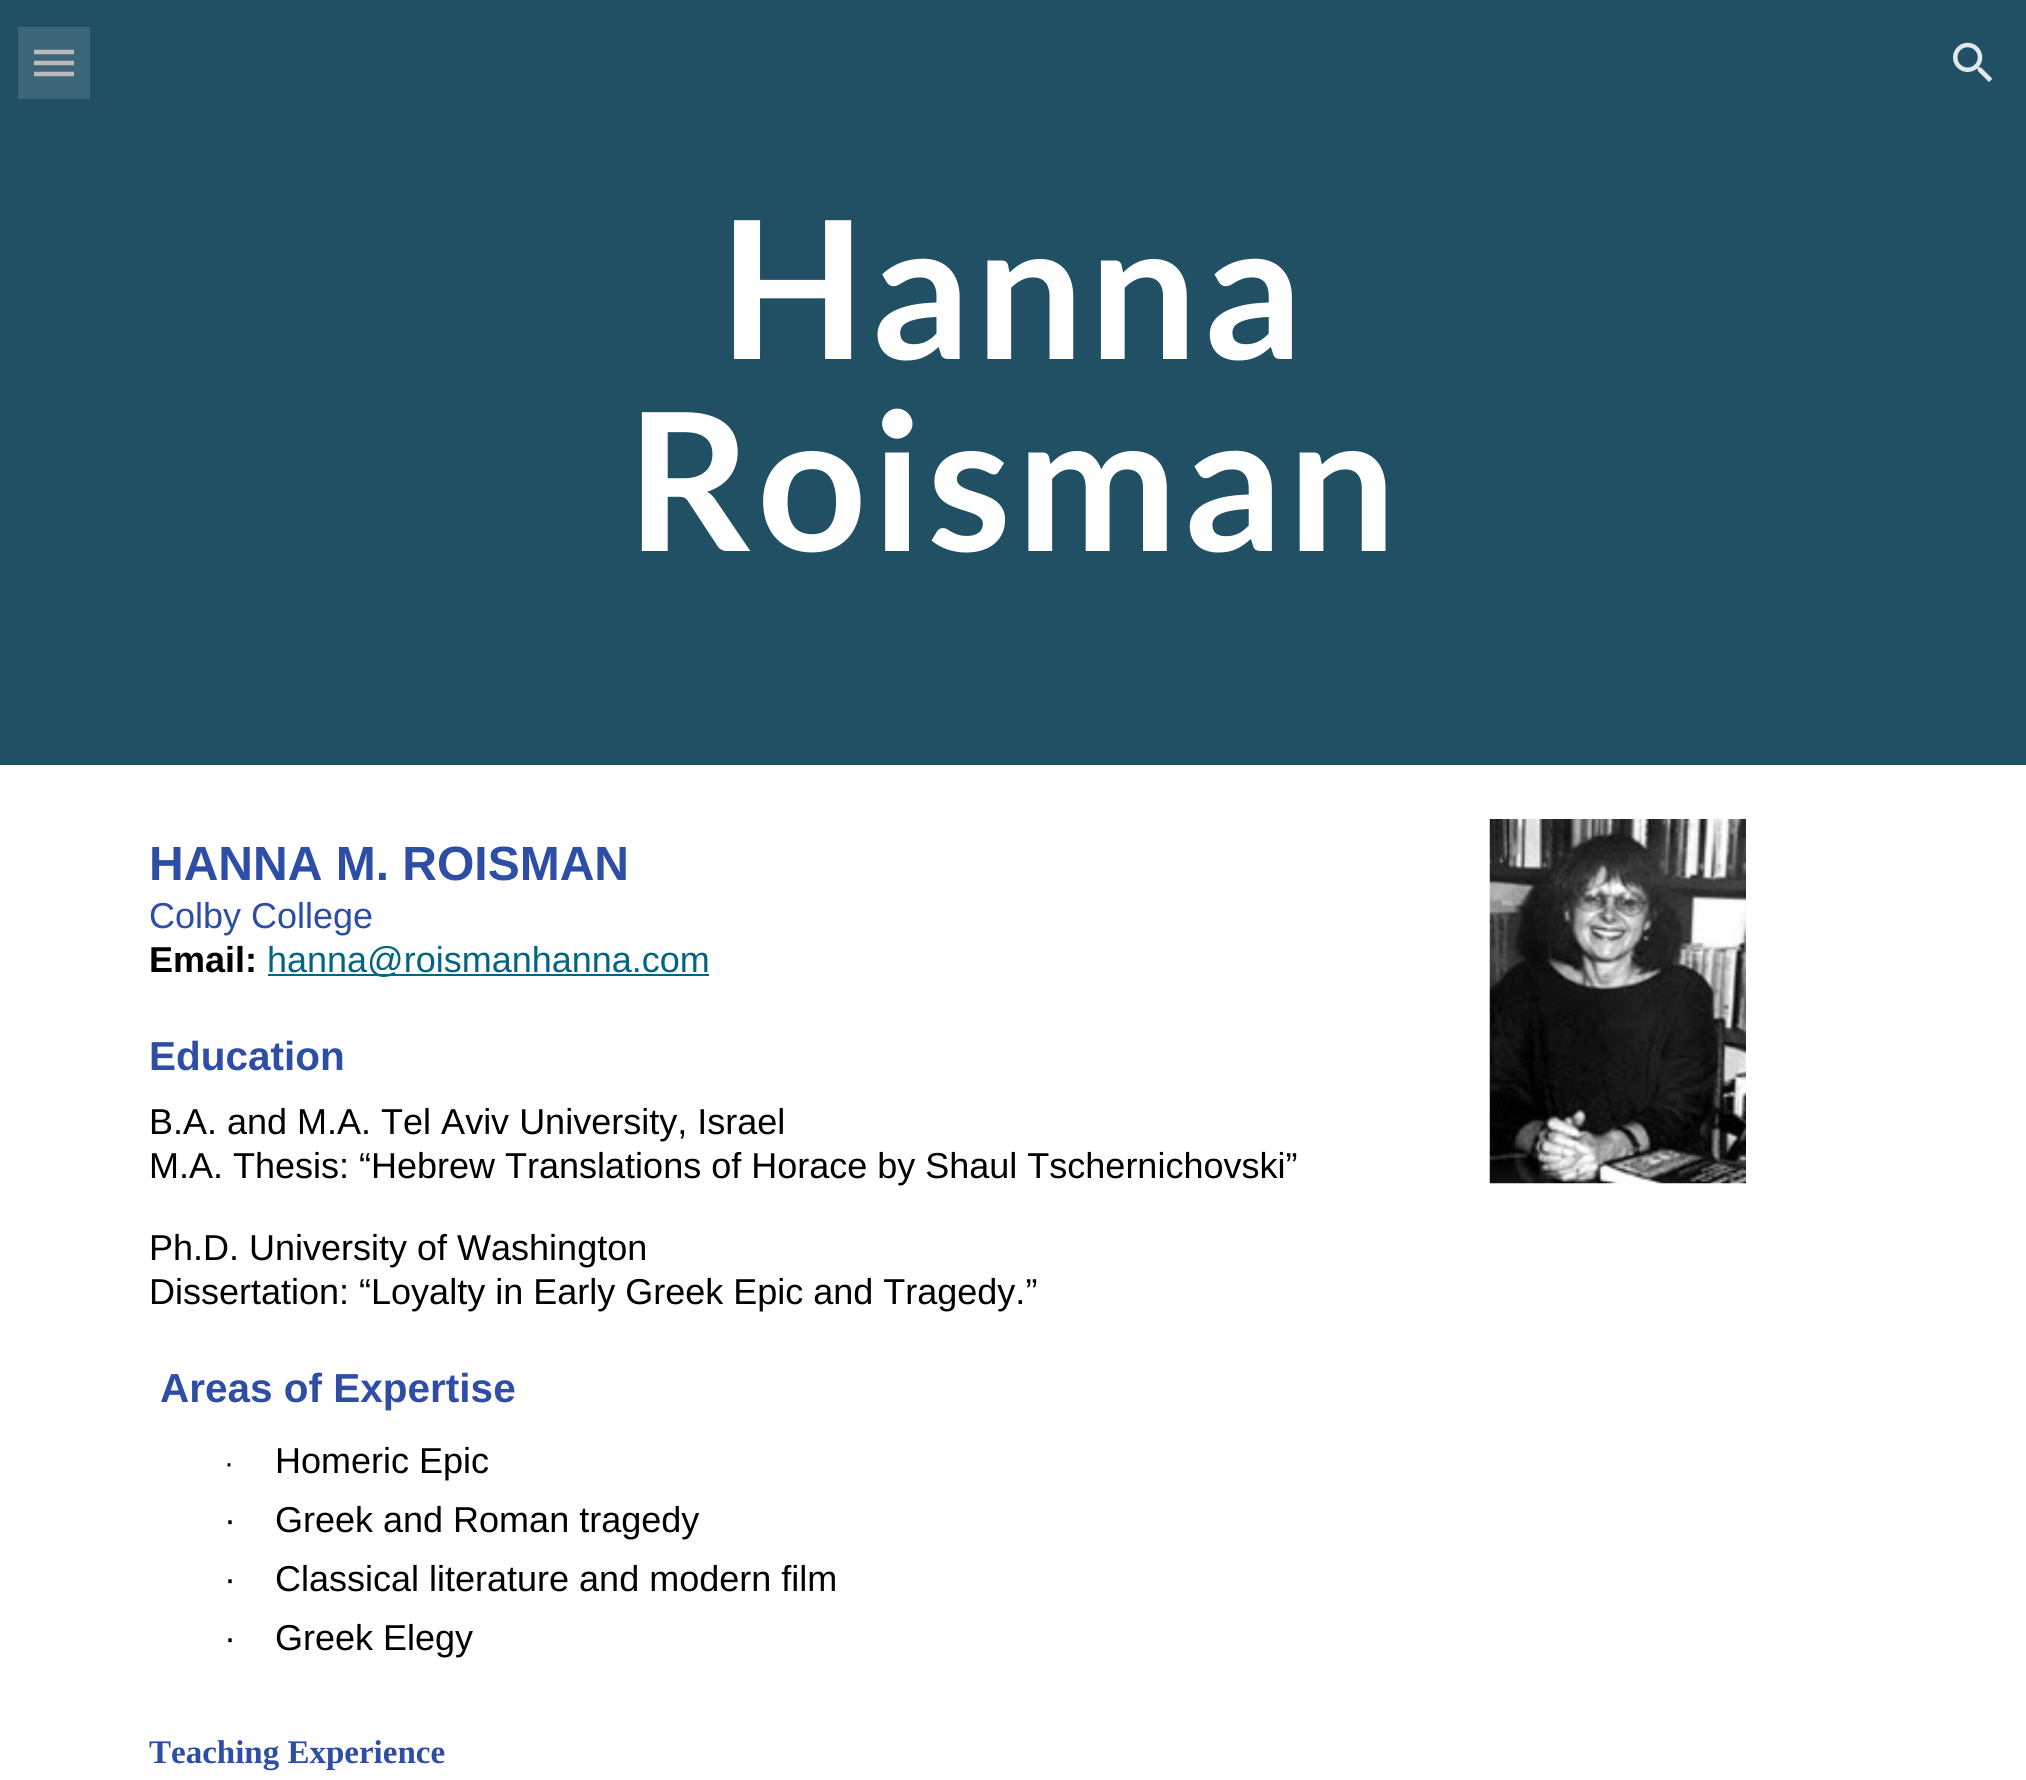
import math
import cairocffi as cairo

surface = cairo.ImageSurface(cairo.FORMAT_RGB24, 2026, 1780)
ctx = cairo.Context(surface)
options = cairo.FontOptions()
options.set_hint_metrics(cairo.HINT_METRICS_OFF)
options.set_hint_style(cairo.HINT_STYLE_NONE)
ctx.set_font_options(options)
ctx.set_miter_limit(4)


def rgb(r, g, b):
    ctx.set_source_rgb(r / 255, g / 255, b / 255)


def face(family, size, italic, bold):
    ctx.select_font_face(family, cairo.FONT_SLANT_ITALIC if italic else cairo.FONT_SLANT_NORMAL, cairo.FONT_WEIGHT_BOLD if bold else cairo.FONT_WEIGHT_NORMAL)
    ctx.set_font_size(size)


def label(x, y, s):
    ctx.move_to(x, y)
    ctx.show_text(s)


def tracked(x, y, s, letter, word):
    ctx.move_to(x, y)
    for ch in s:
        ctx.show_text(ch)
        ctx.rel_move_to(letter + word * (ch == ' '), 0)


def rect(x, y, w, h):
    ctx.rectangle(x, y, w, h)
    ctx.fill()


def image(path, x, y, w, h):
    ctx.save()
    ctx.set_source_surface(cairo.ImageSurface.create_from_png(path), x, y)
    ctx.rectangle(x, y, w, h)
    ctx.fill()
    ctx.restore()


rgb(255, 255, 255)
ctx.paint()
rgb(33, 80, 100)
rect(0, 0, 2026, 765)
rgb(60, 101, 119)
rect(18, 27, 72, 72)
ctx.new_path()
ctx.move_to(34, 52)
ctx.line_to(74, 52)
ctx.move_to(34, 63)
ctx.line_to(74, 63)
ctx.move_to(34, 74)
ctx.line_to(74, 74)
rgb(187, 187, 187)
ctx.set_line_width(4.5)
ctx.stroke()
image('image0.png', 1953, 42, 40, 40)
face('Lato', 192, 0, 1)
rgb(255, 255, 255)
tracked(720, 359, 'Hanna', 4.5, 0)
tracked(627, 551, 'Roisman', 4.5, 0)
face('Liberation Sans', 48, 0, 1)
rgb(45, 78, 164)
label(149, 880, 'HANNA M. ROISMAN')
face('Liberation Sans', 36, 0, 0)
label(149, 928, 'Colby College')
face('Liberation Sans', 36, 0, 1)
rgb(0, 0, 0)
label(149, 972, 'Email:')
rgb(0, 101, 128)
rect(268, 974, 441, 2)
face('Liberation Sans', 36, 0, 0)
label(267, 972, 'hanna@roismanhanna.com')
face('Liberation Sans', 40.5, 0, 1)
rgb(45, 78, 164)
label(149, 1070, 'Education')
face('Liberation Sans', 36, 0, 0)
rgb(0, 0, 0)
label(149, 1134, 'B.A. and M.A. Tel Aviv University, Israel')
label(149, 1178, 'M.A. Thesis: “Hebrew Translations of Horace by Shaul Tschernichovski”')
label(149, 1260, 'Ph.D. University of Washington')
label(149, 1304, 'Dissertation: “Loyalty in Early Greek Epic and Tragedy.”')
face('Liberation Sans', 40.5, 0, 1)
rgb(45, 78, 164)
label(160, 1402, 'Areas of Expertise')
face('Liberation Sans', 30, 0, 0)
rgb(0, 0, 0)
label(224, 1473, '·')
face('Liberation Sans', 36, 0, 0)
label(275, 1473, 'Homeric Epic')
label(224, 1532, '·')
label(275, 1532, 'Greek and Roman tragedy')
label(224, 1591, '·')
label(275, 1591, 'Classical literature and modern film')
label(224, 1650, '·')
label(275, 1650, 'Greek Elegy')
face('Liberation Serif', 33, 0, 1)
rgb(45, 78, 164)
label(149, 1763, 'Teaching Experience')
image('image1.png', 1489, 819, 257, 365)
surface.write_to_png('render.png')
